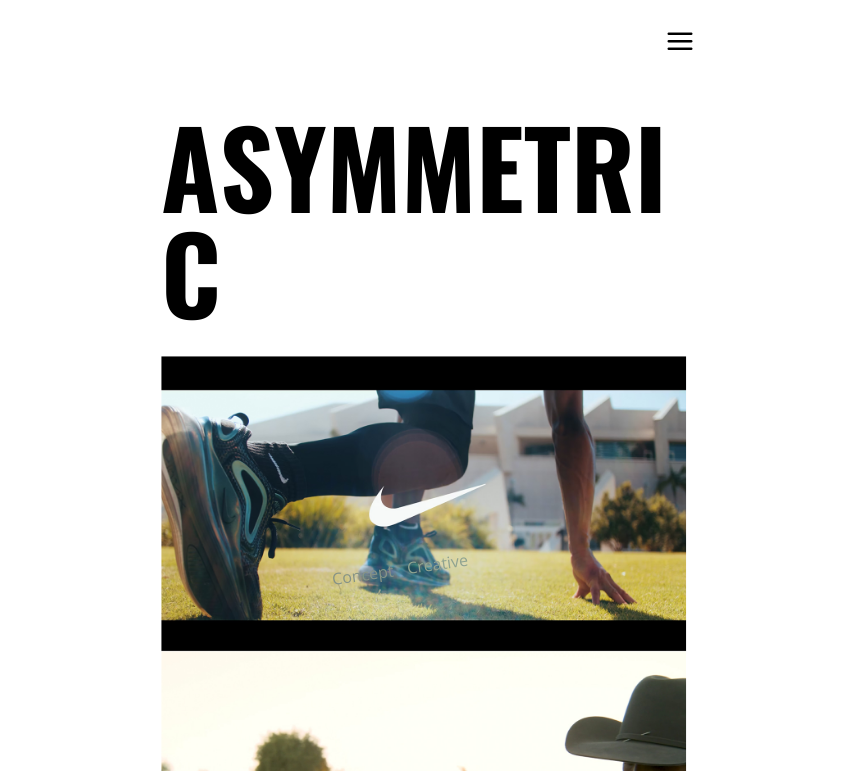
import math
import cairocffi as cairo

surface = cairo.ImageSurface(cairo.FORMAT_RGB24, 847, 771)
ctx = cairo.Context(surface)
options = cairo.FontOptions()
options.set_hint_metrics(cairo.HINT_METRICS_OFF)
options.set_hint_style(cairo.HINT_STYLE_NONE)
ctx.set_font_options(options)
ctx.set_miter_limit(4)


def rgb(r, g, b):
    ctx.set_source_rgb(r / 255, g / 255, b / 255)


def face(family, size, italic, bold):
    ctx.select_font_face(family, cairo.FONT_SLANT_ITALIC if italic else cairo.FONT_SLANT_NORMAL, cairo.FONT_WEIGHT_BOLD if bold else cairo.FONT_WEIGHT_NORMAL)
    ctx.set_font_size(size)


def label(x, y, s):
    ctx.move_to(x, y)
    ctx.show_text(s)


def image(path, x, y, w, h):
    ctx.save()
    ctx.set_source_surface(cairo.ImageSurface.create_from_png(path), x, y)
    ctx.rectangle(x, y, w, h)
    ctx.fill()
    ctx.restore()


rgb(255, 255, 255)
ctx.paint()
image('image0.png', 667, 32, 26, 18)
face('Oswald', 106.25, 0, 1)
rgb(0, 0, 0)
label(161, 213, 'ASYMMETRI')
label(161, 319, 'C')
image('image1.png', 161, 356, 526, 296)
face('Open Sans', 16, 0, 0)
rgb(134, 147, 134)
ctx.save()
ctx.translate(333, 585)
ctx.rotate(-8 * math.pi / 180)
label(0, 0, 'Concept')
ctx.restore()
rgb(144, 163, 144)
ctx.save()
ctx.translate(408, 574)
ctx.rotate(-8 * math.pi / 180)
label(0, 0, 'Creative')
ctx.restore()
image('image2.png', 161, 651, 526, 120)
surface.write_to_png('render.png')
